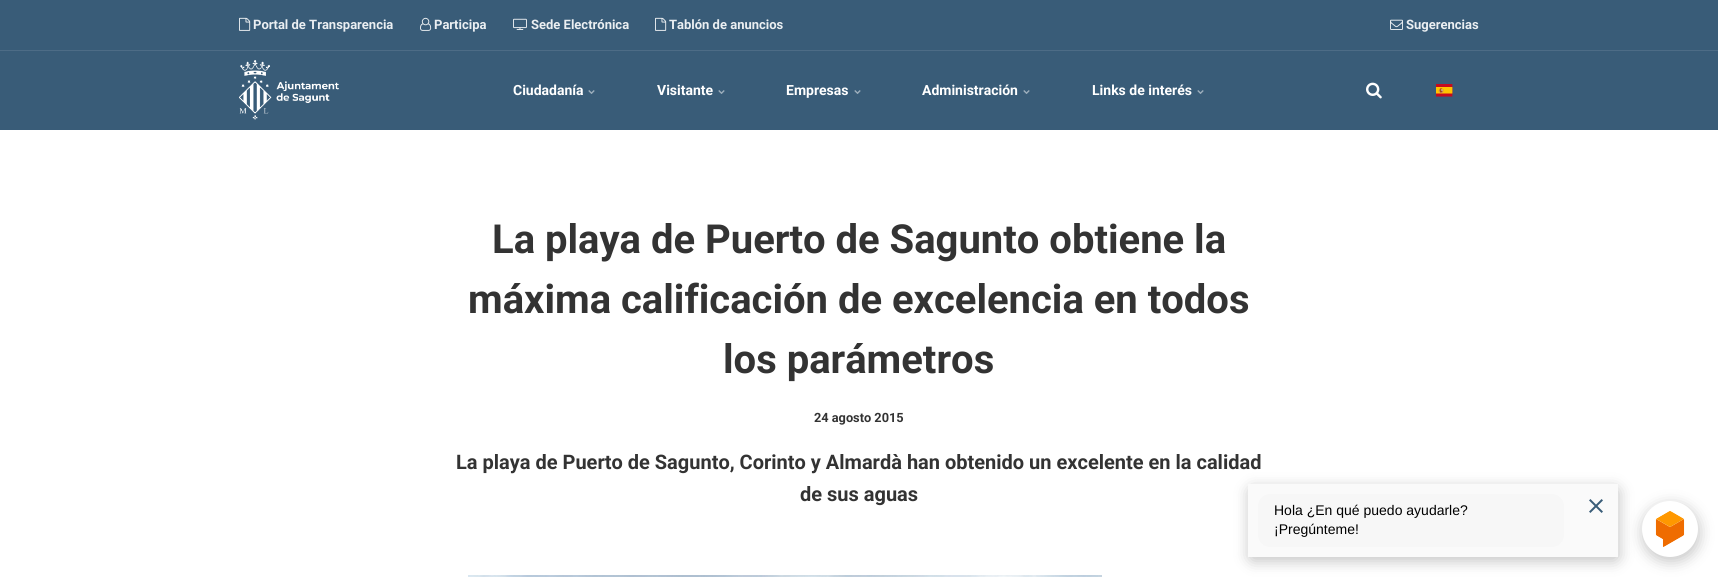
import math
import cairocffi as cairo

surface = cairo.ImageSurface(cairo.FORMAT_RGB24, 1718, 577)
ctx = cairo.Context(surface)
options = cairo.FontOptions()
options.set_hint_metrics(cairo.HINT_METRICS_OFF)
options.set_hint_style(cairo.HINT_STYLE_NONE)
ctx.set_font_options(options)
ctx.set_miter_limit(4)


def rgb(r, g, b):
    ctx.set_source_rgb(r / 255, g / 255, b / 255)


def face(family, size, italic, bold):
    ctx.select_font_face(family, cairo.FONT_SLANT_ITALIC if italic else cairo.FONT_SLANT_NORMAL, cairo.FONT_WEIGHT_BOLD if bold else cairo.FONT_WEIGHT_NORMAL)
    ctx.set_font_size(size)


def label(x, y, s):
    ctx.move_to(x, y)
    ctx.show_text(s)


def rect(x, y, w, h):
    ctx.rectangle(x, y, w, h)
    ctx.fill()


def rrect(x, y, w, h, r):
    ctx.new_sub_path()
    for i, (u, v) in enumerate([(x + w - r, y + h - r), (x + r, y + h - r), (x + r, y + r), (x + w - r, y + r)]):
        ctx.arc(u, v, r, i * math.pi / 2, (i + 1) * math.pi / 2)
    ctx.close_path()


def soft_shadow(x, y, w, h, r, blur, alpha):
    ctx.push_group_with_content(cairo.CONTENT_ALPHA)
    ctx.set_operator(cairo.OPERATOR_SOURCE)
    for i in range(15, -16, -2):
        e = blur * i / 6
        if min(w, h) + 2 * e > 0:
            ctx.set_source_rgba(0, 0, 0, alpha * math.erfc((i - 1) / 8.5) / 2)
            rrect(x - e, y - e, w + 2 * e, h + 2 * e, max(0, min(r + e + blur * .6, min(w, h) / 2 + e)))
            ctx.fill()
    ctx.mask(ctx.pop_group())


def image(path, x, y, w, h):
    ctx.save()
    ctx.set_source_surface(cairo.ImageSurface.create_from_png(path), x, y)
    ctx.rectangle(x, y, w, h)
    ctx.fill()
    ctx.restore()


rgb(255, 255, 255)
ctx.paint()
ctx.rectangle(-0.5, -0.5, 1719, 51)
rgb(77, 108, 134)
ctx.set_line_width(1)
ctx.stroke()
rgb(57, 92, 120)
rect(0, 0, 1718, 50)
image('image0.png', 239, 17, 12, 14)
face('Roboto', 13, 0, 1)
rgb(235, 239, 242)
label(253, 29, 'Portal de Transparencia')
image('image1.png', 420, 17, 12, 14)
label(434, 29, 'Participa')
image('image2.png', 513, 18, 14, 12)
label(531, 29, 'Sede Electrónica')
image('image0.png', 655, 17, 12, 14)
label(669, 29, 'Tablón de anuncios')
image('image3.png', 1390, 19, 13, 11)
label(1406, 29, 'Sugerencias')
rgb(57, 92, 120)
rect(0, 51, 1718, 79)
image('image4.png', 239, 60, 100, 60)
face('Roboto', 14, 0, 1)
rgb(255, 255, 255)
label(513, 95, 'Ciudadanía')
image('image5.png', 588, 90, 7, 4)
label(657, 95, 'Visitante')
image('image5.png', 718, 90, 7, 4)
label(786, 95, 'Empresas')
image('image5.png', 854, 90, 7, 4)
label(922, 95, 'Administración')
image('image5.png', 1023, 90, 7, 4)
label(1092, 95, 'Links de interés')
image('image5.png', 1197, 90, 7, 4)
image('image6.png', 1366, 82, 16, 17)
image('image7.png', 1436, 84, 17, 13)
face('Roboto', 40, 0, 1)
rgb(51, 51, 51)
label(492, 253, 'La playa de Puerto de Sagunto obtiene la')
label(468, 313, 'máxima calificación de excelencia en todos')
label(723, 373, 'los parámetros')
face('Roboto', 12.75, 0, 1)
label(814, 422, '24 agosto 2015')
face('Roboto', 20, 0, 1)
label(456, 469, 'La playa de Puerto de Sagunto, Corinto y Almardà han obtenido un excelente en la calidad')
label(800, 501, 'de sus aguas')
image('image8.png', 468, 575, 634, 2)
rgb(0, 0, 0)
soft_shadow(1249, 488, 370, 73, 4, 7.5, 0.24)
rgb(250, 250, 250)
rect(1248, 484, 370, 73)
rgb(247, 247, 247)
rrect(1258, 494, 306, 53, 12)
ctx.fill()
face('Liberation Sans', 14, 0, 0)
rgb(0, 0, 0)
label(1274, 515, 'Hola ¿En qué puedo ayudarle?')
label(1274, 534, '¡Pregúnteme!')
image('image9.png', 1589, 499, 14, 14)
rgb(0, 0, 0)
soft_shadow(1643, 505, 56, 56, 28, 7.5, 0.24)
rgb(255, 255, 255)
ctx.arc(1670, 529, 28, 0, 2 * math.pi)
ctx.fill()
image('image10.png', 1655, 511, 30, 36)
surface.write_to_png('render.png')
